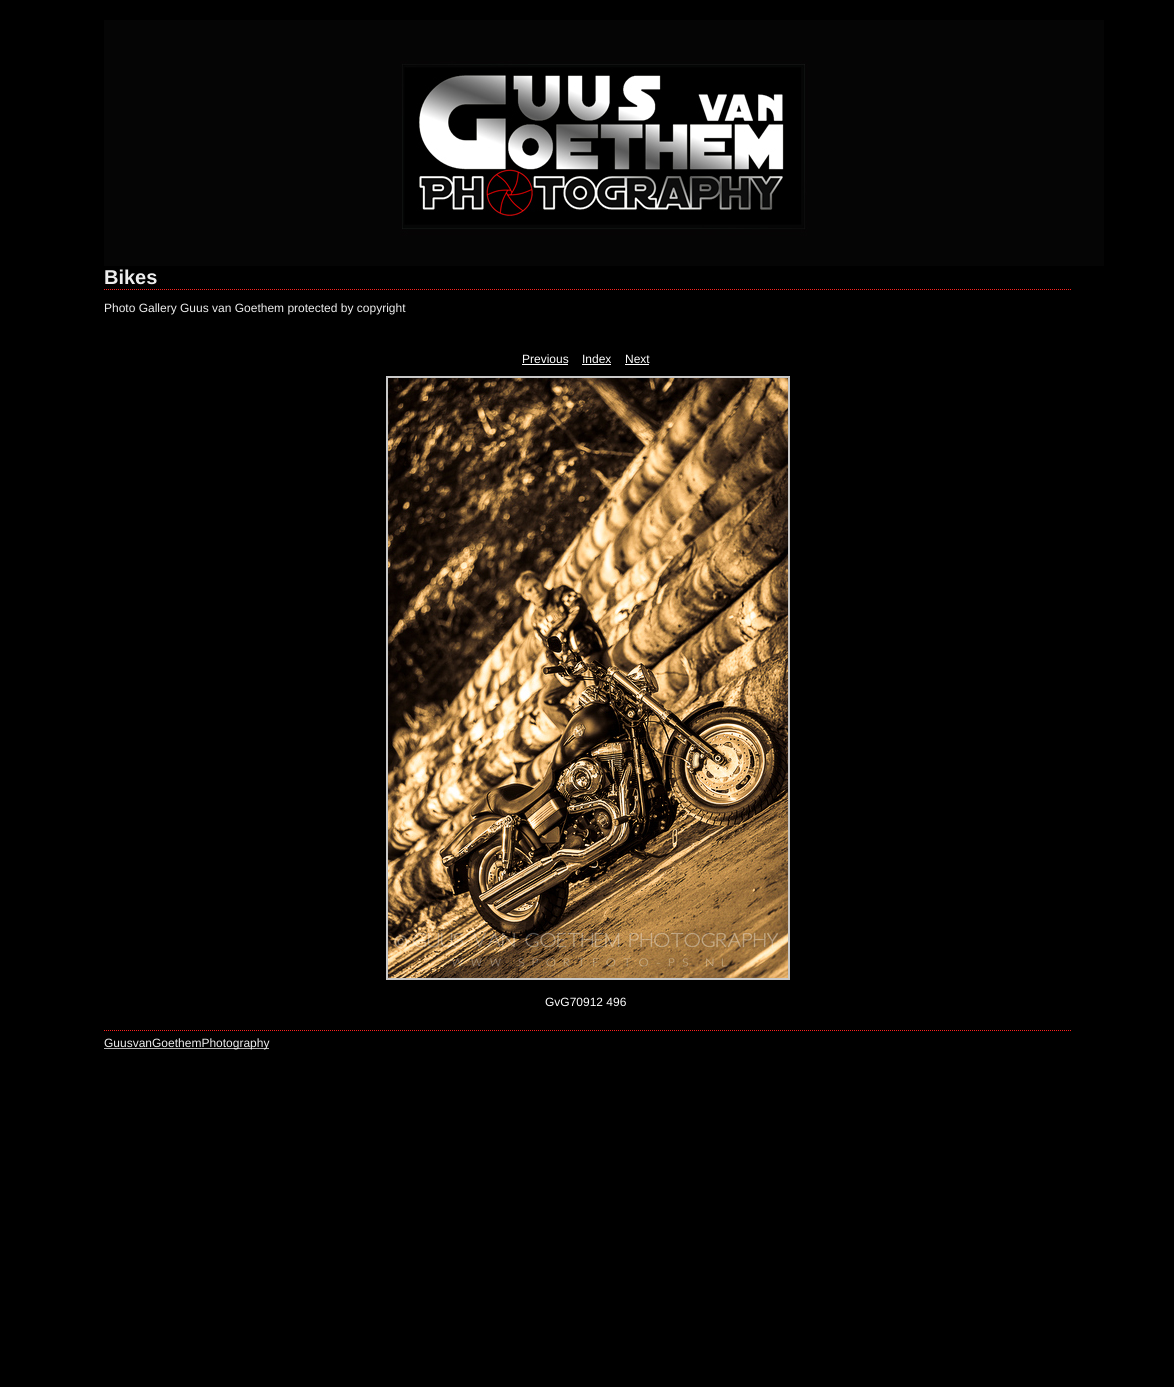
import math
import cairocffi as cairo

surface = cairo.ImageSurface(cairo.FORMAT_RGB24, 1174, 1387)
ctx = cairo.Context(surface)
options = cairo.FontOptions()
options.set_hint_metrics(cairo.HINT_METRICS_OFF)
options.set_hint_style(cairo.HINT_STYLE_NONE)
ctx.set_font_options(options)
ctx.set_miter_limit(4)


def rgb(r, g, b):
    ctx.set_source_rgb(r / 255, g / 255, b / 255)


def face(family, size, italic, bold):
    ctx.select_font_face(family, cairo.FONT_SLANT_ITALIC if italic else cairo.FONT_SLANT_NORMAL, cairo.FONT_WEIGHT_BOLD if bold else cairo.FONT_WEIGHT_NORMAL)
    ctx.set_font_size(size)


def label(x, y, s):
    ctx.move_to(x, y)
    ctx.show_text(s)


def rect(x, y, w, h):
    ctx.rectangle(x, y, w, h)
    ctx.fill()


def image(path, x, y, w, h):
    ctx.save()
    ctx.set_source_surface(cairo.ImageSurface.create_from_png(path), x, y)
    ctx.rectangle(x, y, w, h)
    ctx.fill()
    ctx.restore()


rgb(0, 0, 0)
ctx.paint()
image('image0.png', 104, 20, 1000, 246)
ctx.new_path()
ctx.move_to(104, 289.5)
ctx.line_to(1071, 289.5)
rgb(254, 33, 31)
ctx.set_line_width(1)
ctx.set_dash([1, 1])
ctx.stroke()
face('Liberation Sans', 20, 0, 1)
rgb(238, 238, 238)
label(104, 284, 'Bikes')
face('Liberation Sans', 12, 0, 0)
label(104, 312, 'Photo Gallery Guus van Goethem protected by copyright')
ctx.new_path()
ctx.move_to(104, 1030.5)
ctx.line_to(1071, 1030.5)
rgb(254, 33, 31)
ctx.stroke()
rgb(255, 255, 255)
label(522, 363, 'Previous')
rect(522, 364, 46, 1)
label(582, 363, 'Index')
rect(582, 364, 29, 1)
label(625, 363, 'Next')
rect(625, 364, 24, 1)
ctx.rectangle(387, 377, 402, 602)
rgb(200, 200, 200)
ctx.set_line_width(2)
ctx.set_dash([])
ctx.stroke()
image('image1.png', 388, 378, 400, 600)
rgb(255, 255, 255)
label(545, 1006, 'GvG70912 496')
rgb(179, 179, 179)
rect(104, 1048, 165, 1)
rgb(238, 238, 238)
label(104, 1047, 'GuusvanGoethemPhotography')
surface.write_to_png('render.png')
